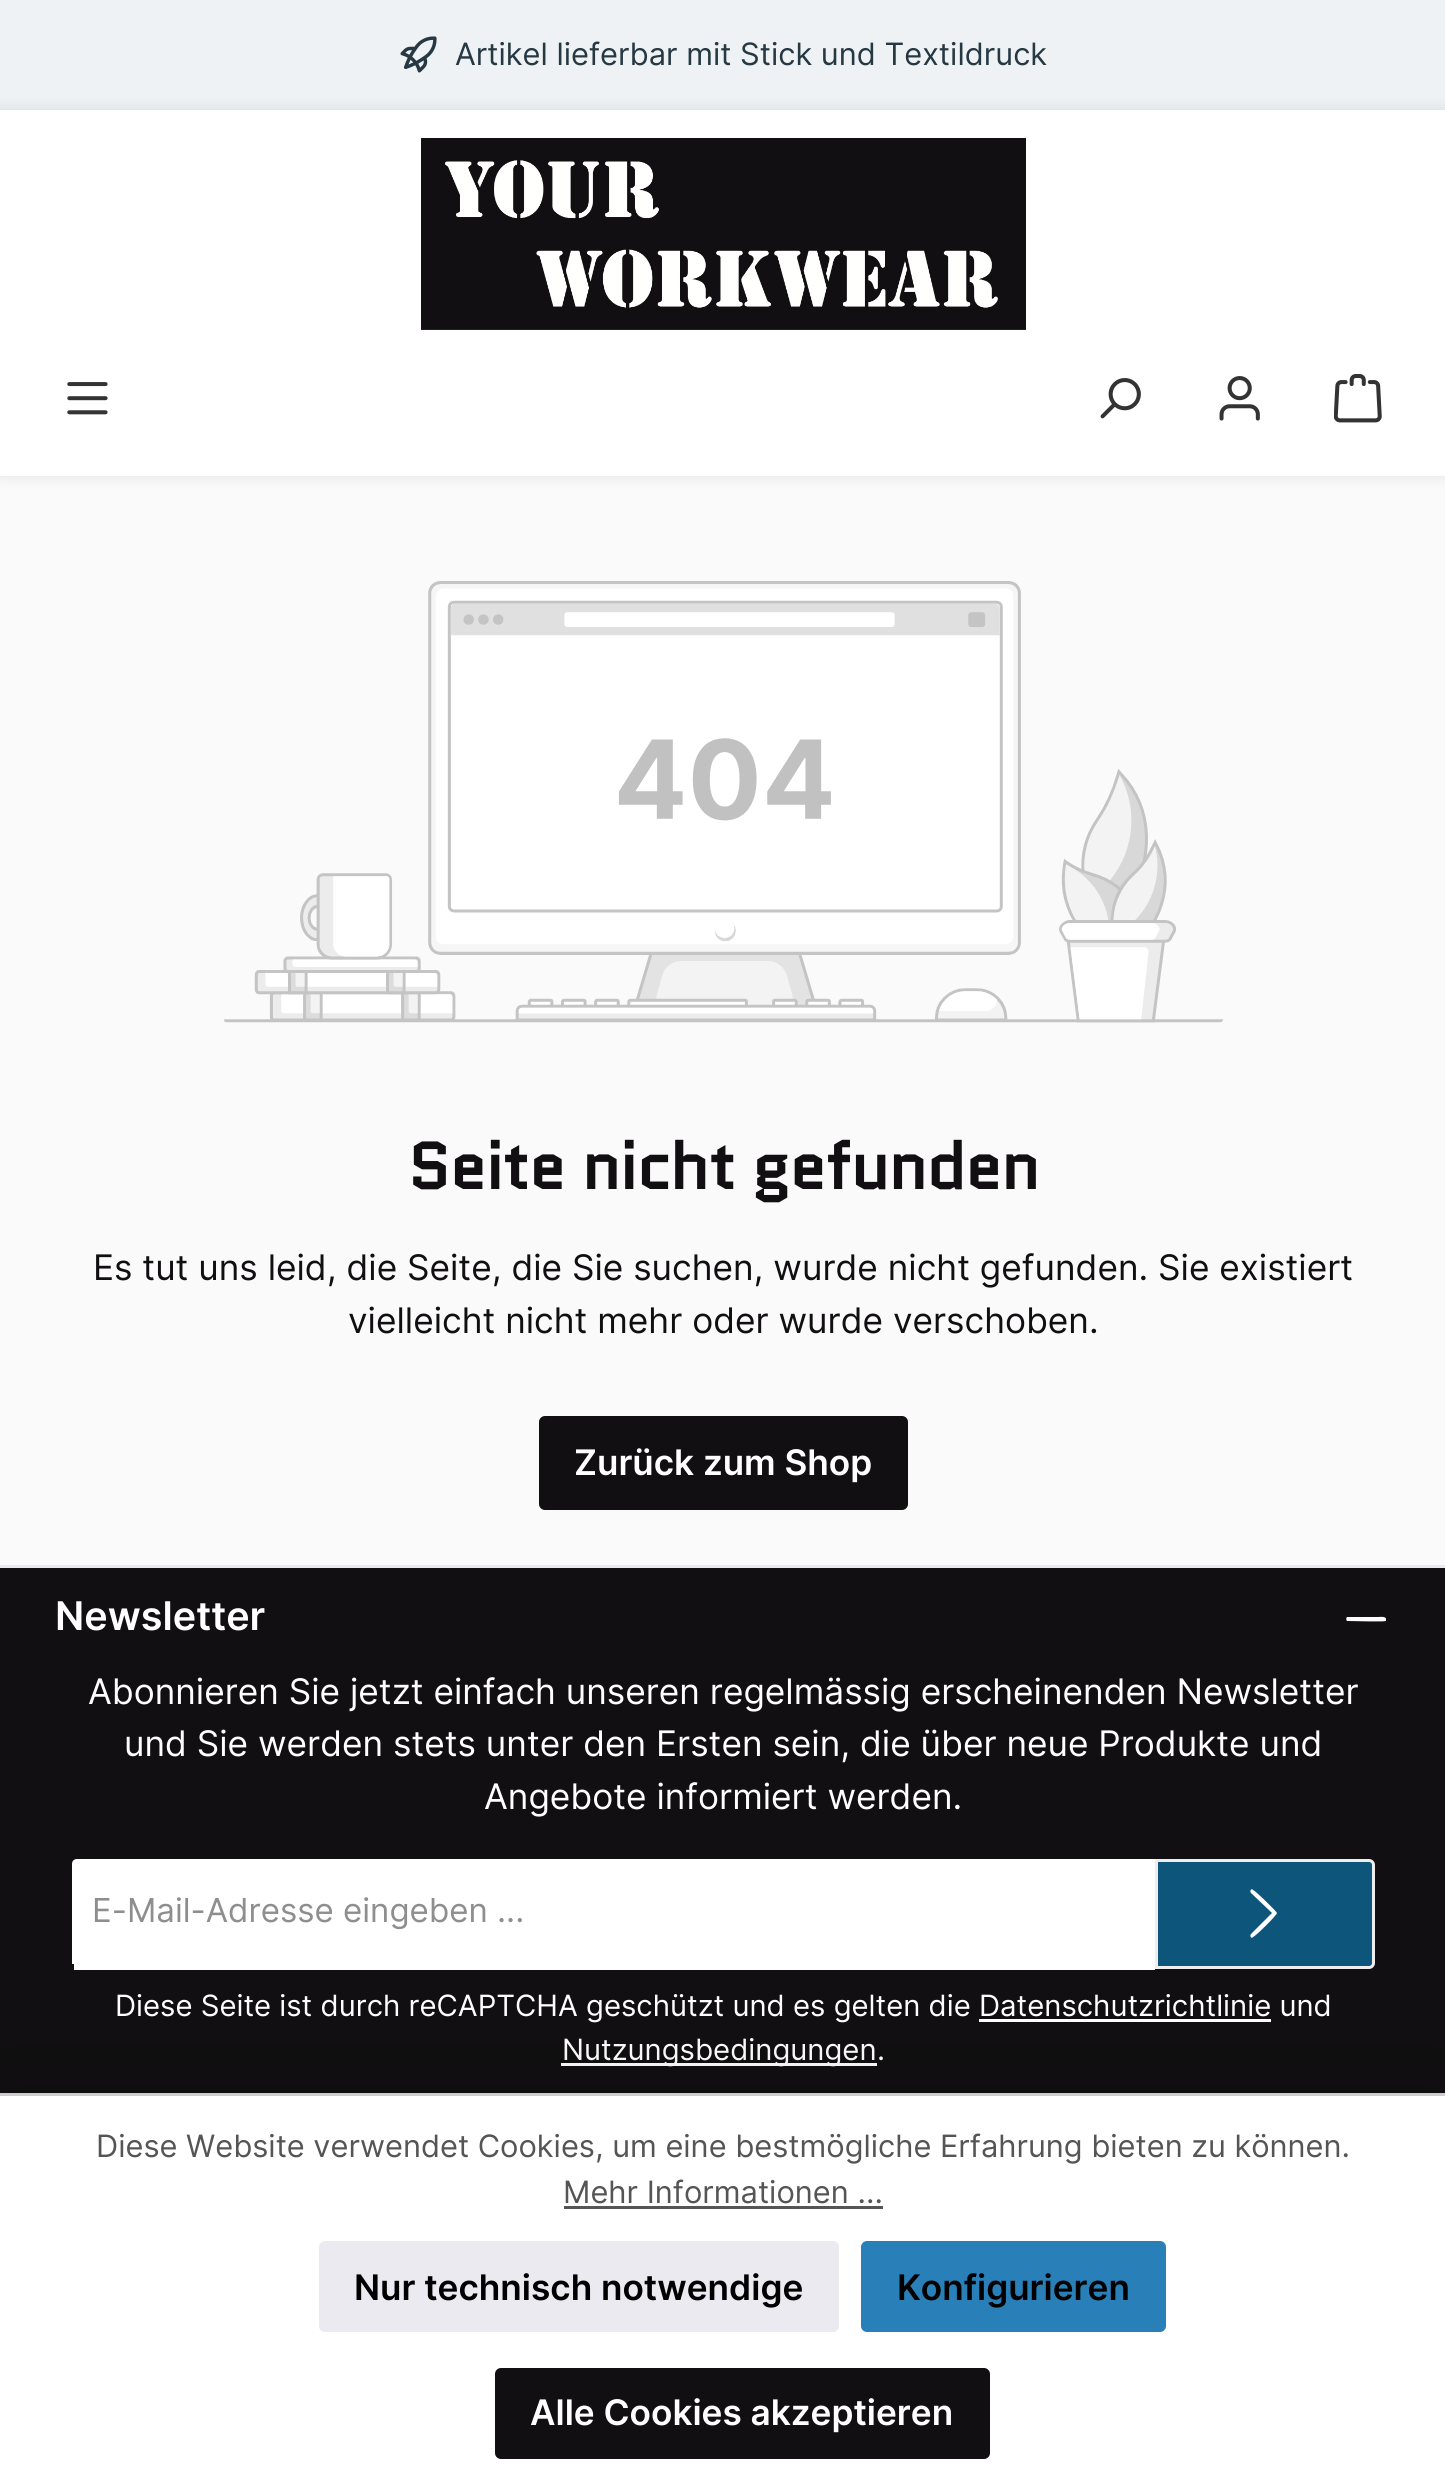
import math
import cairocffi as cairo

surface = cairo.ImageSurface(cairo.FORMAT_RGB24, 1445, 2492)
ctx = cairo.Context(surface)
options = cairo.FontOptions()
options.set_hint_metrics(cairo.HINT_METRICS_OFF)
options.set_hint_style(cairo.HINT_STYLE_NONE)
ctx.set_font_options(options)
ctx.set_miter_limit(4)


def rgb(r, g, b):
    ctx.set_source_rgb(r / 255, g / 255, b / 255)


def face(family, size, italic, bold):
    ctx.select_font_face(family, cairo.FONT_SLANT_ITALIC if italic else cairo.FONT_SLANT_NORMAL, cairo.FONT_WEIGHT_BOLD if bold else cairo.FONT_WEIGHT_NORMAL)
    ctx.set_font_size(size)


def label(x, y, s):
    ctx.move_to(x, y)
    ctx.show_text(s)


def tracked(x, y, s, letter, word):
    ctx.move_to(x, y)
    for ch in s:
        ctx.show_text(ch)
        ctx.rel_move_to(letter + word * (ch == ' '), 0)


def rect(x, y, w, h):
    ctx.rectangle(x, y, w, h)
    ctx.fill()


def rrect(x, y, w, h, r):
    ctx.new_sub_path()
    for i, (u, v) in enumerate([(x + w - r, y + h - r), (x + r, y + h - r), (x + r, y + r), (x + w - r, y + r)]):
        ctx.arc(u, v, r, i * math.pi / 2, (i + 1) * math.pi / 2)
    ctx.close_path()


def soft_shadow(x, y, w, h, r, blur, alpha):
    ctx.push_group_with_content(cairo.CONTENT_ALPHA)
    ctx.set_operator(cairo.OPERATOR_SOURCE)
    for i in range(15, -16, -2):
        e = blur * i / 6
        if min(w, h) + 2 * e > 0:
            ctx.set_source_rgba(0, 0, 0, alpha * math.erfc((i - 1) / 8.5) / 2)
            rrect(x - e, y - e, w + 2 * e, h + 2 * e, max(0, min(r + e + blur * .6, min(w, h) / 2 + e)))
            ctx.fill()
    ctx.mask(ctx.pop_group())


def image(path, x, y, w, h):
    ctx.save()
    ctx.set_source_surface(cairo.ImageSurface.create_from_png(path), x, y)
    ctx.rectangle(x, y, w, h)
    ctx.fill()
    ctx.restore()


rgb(250, 250, 250)
ctx.paint()
rgb(238, 242, 245)
rect(0, 0, 1445, 110)
image('image0.png', 400, 36, 37, 37)
face('Inter', 30.8, 0, 0)
rgb(38, 56, 66)
label(455, 65, 'Artikel lieferbar mit Stick und Textildruck')
rgb(0, 0, 0)
soft_shadow(0, 110, 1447, 366, 0, 7, 0.1)
rgb(255, 255, 255)
rect(0, 110, 1445, 366)
image('image1.png', 421, 138, 605, 192)
image('image2.png', 67, 382, 41, 33)
image('image3.png', 1100, 378, 41, 41)
image('image4.png', 1219, 376, 41, 45)
image('image5.png', 1334, 374, 48, 49)
image('image6.png', 224, 581, 1000, 442)
face('Quantico', 64.9, 0, 1)
rgb(17, 15, 17)
label(408, 1189, 'Seite nicht gefunden')
face('Inter', 35.2, 0, 0)
label(93, 1280, 'Es tut uns leid, die Seite, die Sie suchen, wurde nicht gefunden. Sie existiert')
label(348, 1333, 'vielleicht nicht mehr oder wurde verschoben.')
rrect(540.5, 1417.5, 366, 91, 4.5)
ctx.fill_preserve()
ctx.set_line_width(3)
ctx.stroke()
face('Inter SemiBold', 35.2, 0, 0)
rgb(255, 255, 255)
label(574, 1475, 'Zurück zum Shop')
rgb(17, 15, 17)
rect(0, 1568, 1445, 525)
rgb(234, 234, 240)
rect(0, 1565, 1445, 3)
face('Inter SemiBold', 39.5, 0, 0)
rgb(255, 255, 255)
label(55, 1630, 'Newsletter')
ctx.set_fill_rule(cairo.FILL_RULE_EVEN_ODD)
ctx.new_path()
ctx.move_to(1348, 1621)
ctx.curve_to(1352, 1621, 1384, 1622, 1386, 1621)
ctx.line_to(1386, 1619)
ctx.curve_to(1386, 1616, 1379, 1617, 1378, 1617)
ctx.line_to(1347, 1617)
ctx.curve_to(1346, 1618, 1346, 1620, 1347, 1621)
ctx.close_path()
ctx.fill()
face('Inter', 35.2, 0, 0)
label(88, 1704, 'Abonnieren Sie jetzt einfach unseren regelmässig erscheinenden Newsletter')
label(124, 1756, 'und Sie werden stets unter den Ersten sein, die über neue Produkte und')
label(484, 1809, 'Angebote informiert werden.')
ctx.set_fill_rule(cairo.FILL_RULE_WINDING)
ctx.new_path()
ctx.move_to(77, 1859)
ctx.line_to(1155, 1859)
ctx.line_to(1155, 1964)
ctx.line_to(72, 1964)
ctx.line_to(72, 1864)
ctx.curve_to(72, 1861, 74, 1859, 77, 1859)
ctx.close_path()
ctx.fill()
rect(74, 1964, 1081, 6)
face('Inter', 33, 0, 0)
rgb(142, 142, 142)
label(92, 1922, 'E-Mail-Adresse eingeben ...')
rgb(14, 85, 123)
ctx.new_path()
ctx.move_to(1156.5, 1860.5)
ctx.line_to(1369, 1860.5)
ctx.curve_to(1371.5, 1860.5, 1373.5, 1862.5, 1373.5, 1865)
ctx.line_to(1373.5, 1963)
ctx.curve_to(1373.5, 1965.5, 1371.5, 1967.5, 1369, 1967.5)
ctx.line_to(1156.5, 1967.5)
ctx.close_path()
ctx.fill_preserve()
rgb(238, 238, 238)
ctx.stroke()
rgb(255, 255, 255)
ctx.set_fill_rule(cairo.FILL_RULE_EVEN_ODD)
ctx.new_path()
ctx.move_to(1272, 1913)
ctx.line_to(1251, 1934)
ctx.curve_to(1250, 1935, 1250, 1937, 1252, 1938)
ctx.line_to(1253, 1937)
ctx.curve_to(1256, 1936, 1277, 1915, 1277, 1913)
ctx.curve_to(1277, 1912, 1256, 1891, 1253, 1890)
ctx.line_to(1252, 1889)
ctx.curve_to(1250, 1890, 1250, 1892, 1251, 1893)
ctx.close_path()
ctx.fill()
face('Inter', 29.3, 0, 0)
label(115, 2016, 'Diese Seite ist durch reCAPTCHA geschützt und es gelten die')
label(979, 2016, 'Datenschutzrichtlinie und')
rect(979, 2019, 292, 3)
rect(561, 2063, 316, 3)
label(562, 2060, 'Nutzungsbedingungen')
label(877, 2060, '.')
rgb(0, 0, 0)
soft_shadow(0, 2093, 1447, 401, 0, 41, 0.2)
rgb(255, 255, 255)
rect(0, 2096, 1445, 396)
rgb(204, 204, 204)
rect(0, 2093, 1445, 3)
face('Inter', 30.8, 0, 0)
rgb(85, 85, 85)
tracked(96, 2157, 'Diese Website verwendet Cookies, um eine bestmögliche Erfahrung bieten zu können.', 0, -0.1)
label(563, 2203, 'Mehr Informationen ...')
rect(564, 2206, 319, 3)
rgb(234, 234, 240)
rrect(320.5, 2242.5, 517, 88, 4.5)
ctx.fill_preserve()
ctx.stroke()
face('Inter SemiBold', 35.2, 0, 0)
rgb(0, 0, 0)
label(354, 2300, 'Nur technisch notwendige')
rgb(41, 128, 185)
rrect(862.5, 2242.5, 302, 88, 4.5)
ctx.fill_preserve()
ctx.stroke()
rgb(0, 0, 0)
label(897, 2300, 'Konfigurieren')
rgb(17, 15, 17)
rrect(496.5, 2369.5, 492, 88, 4.5)
ctx.fill_preserve()
ctx.stroke()
rgb(255, 255, 255)
label(530, 2425, 'Alle Cookies akzeptieren')
surface.write_to_png('render.png')
